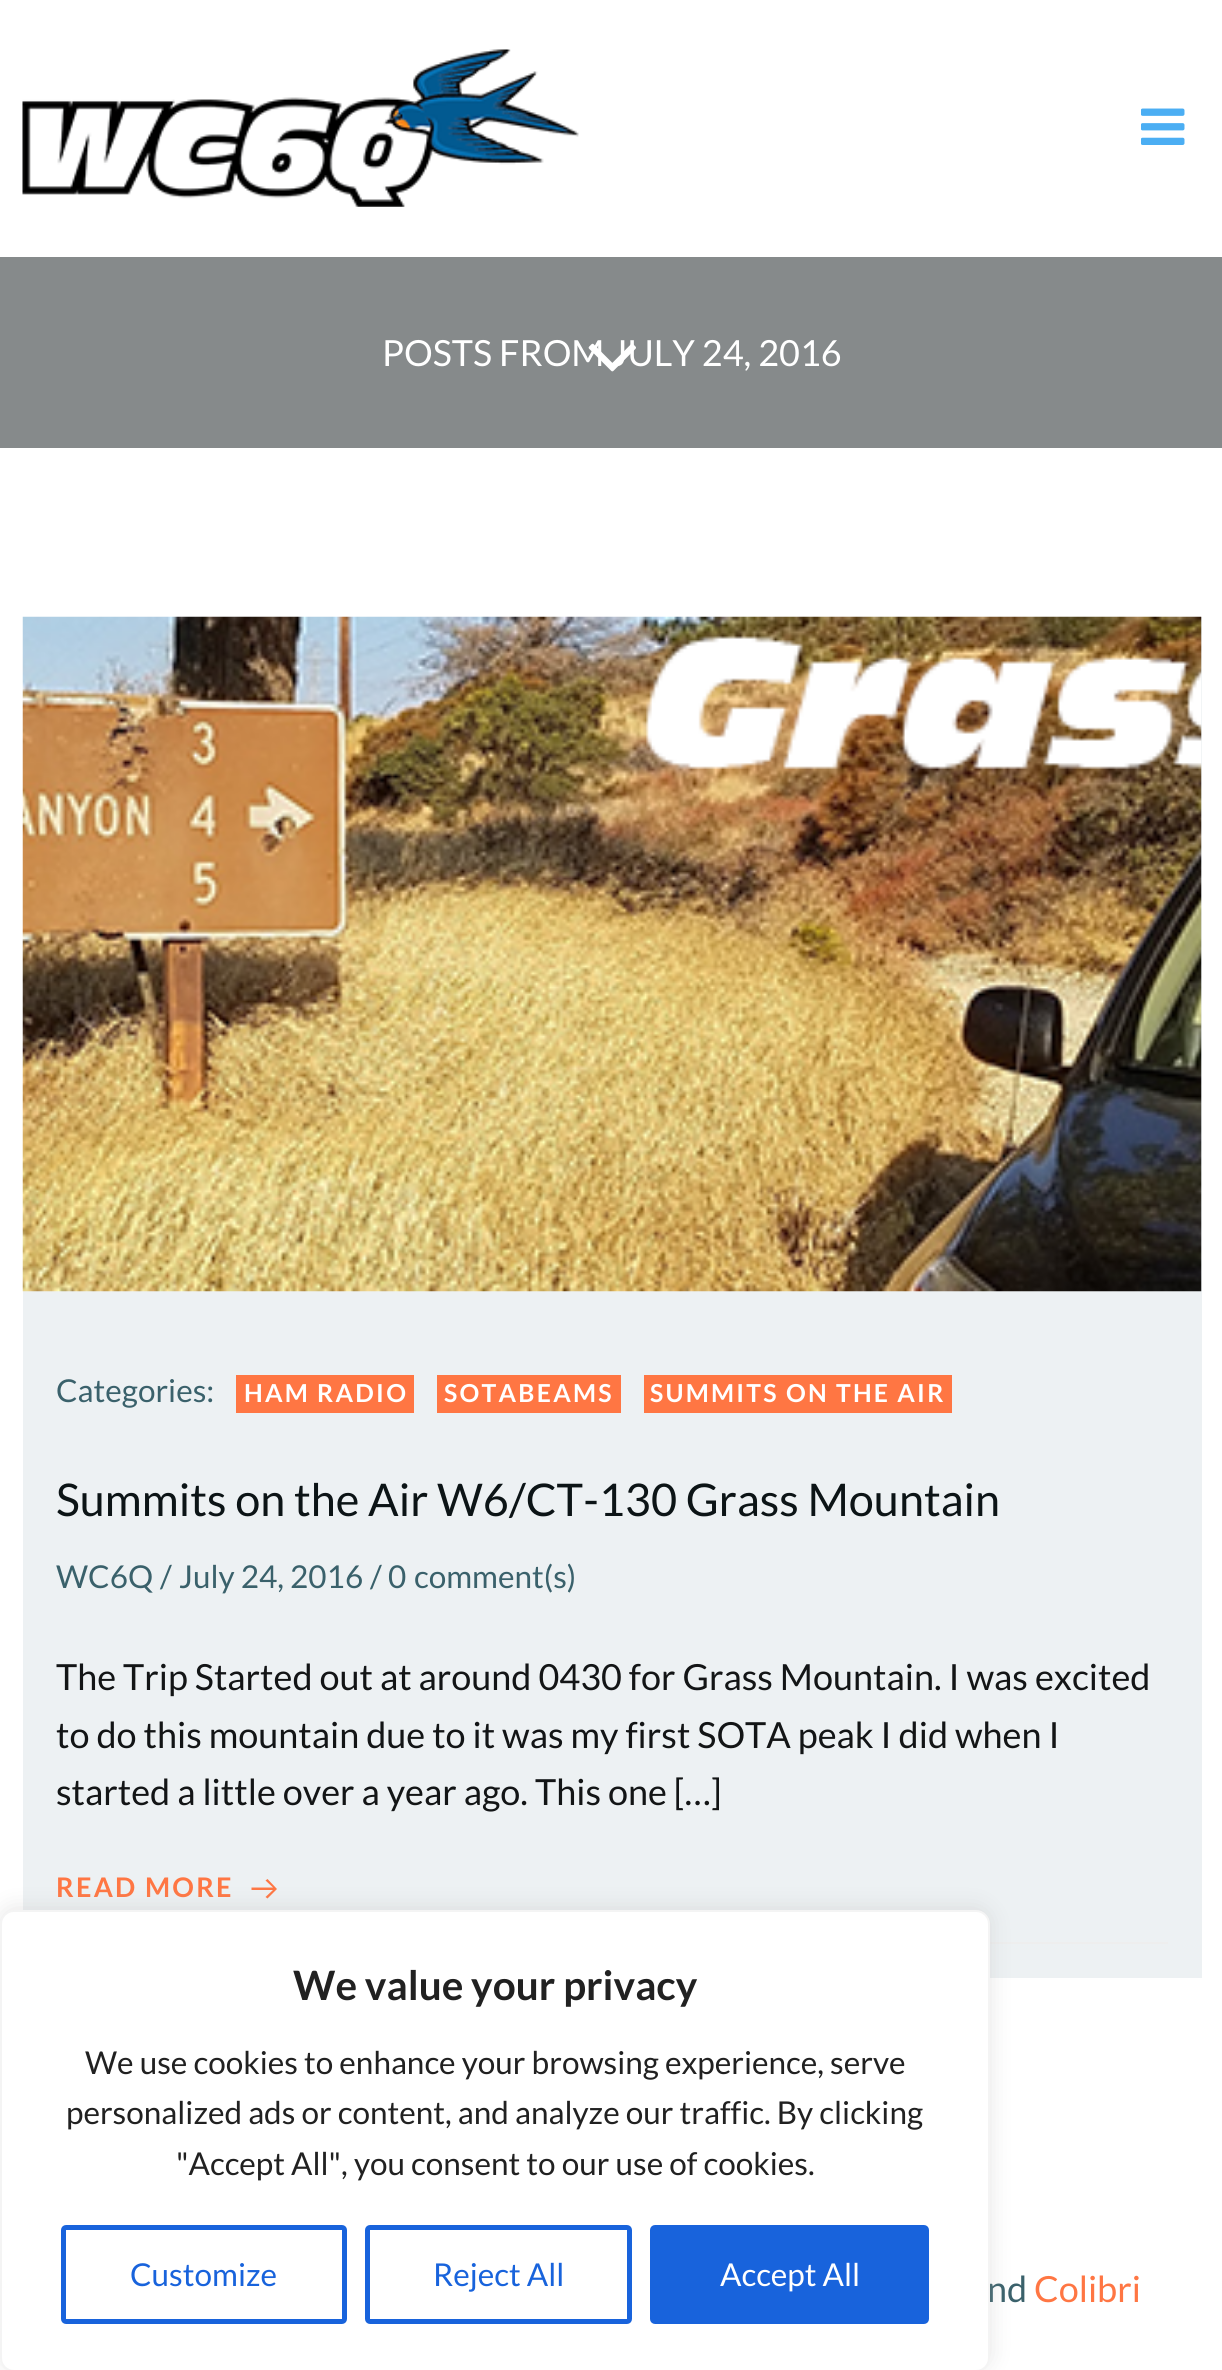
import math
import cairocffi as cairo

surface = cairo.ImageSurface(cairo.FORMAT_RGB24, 1222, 2370)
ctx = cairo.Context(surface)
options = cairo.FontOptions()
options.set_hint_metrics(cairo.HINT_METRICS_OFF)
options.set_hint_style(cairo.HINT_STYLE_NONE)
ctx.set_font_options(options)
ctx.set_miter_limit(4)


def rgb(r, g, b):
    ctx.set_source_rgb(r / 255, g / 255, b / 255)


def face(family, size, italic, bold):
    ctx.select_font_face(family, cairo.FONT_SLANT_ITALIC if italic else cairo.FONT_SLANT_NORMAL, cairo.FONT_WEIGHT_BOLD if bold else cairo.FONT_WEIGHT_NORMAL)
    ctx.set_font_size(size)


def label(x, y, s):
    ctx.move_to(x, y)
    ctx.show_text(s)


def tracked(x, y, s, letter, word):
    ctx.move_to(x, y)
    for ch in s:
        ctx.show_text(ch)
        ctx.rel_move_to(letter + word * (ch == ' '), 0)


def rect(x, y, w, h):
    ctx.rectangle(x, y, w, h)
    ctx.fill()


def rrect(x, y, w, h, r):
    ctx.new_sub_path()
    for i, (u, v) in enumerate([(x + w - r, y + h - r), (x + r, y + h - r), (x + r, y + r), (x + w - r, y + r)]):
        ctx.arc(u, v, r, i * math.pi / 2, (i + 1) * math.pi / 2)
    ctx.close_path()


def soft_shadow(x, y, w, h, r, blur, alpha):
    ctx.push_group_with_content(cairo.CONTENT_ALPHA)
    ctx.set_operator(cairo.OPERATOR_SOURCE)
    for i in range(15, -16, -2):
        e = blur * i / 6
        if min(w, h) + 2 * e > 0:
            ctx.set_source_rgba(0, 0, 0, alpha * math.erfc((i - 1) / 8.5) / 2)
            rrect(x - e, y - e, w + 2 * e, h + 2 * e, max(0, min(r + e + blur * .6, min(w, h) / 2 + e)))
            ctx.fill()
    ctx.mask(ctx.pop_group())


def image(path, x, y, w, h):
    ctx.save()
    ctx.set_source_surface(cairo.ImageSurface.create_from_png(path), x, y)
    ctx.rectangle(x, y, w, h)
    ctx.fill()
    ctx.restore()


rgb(255, 255, 255)
ctx.paint()
image('image0.png', 22, 49, 557, 158)
image('image1.png', 1141, 108, 44, 37)
rgb(134, 138, 139)
rect(0, 257, 1222, 191)
face('Lato', 36, 0, 0)
rgb(255, 255, 255)
label(382, 366, 'POSTS FROM JULY 24, 2016')
image('image2.png', 588, 343, 48, 29)
rgb(237, 241, 243)
rect(23, 617, 1179, 1361)
image('image3.png', 22, 616, 1180, 676)
rgb(238, 238, 238)
rect(990, 1942, 178, 2)
face('Lato', 31.5, 0, 0)
rgb(58, 97, 107)
label(56, 1402, 'Categories:')
rgb(255, 118, 67)
rect(236, 1375, 178, 38)
face('Lato', 24.75, 0, 1)
rgb(255, 255, 255)
tracked(244, 1402, 'HAM RADIO', 2.25, 0)
rgb(255, 118, 67)
rect(437, 1375, 184, 38)
rgb(255, 255, 255)
tracked(444, 1402, 'SOTABEAMS', 2.25, 0)
rgb(255, 118, 67)
rect(644, 1375, 308, 38)
rgb(255, 255, 255)
tracked(650, 1402, 'SUMMITS ON THE AIR', 2.25, 0)
face('Lato', 45, 0, 0)
rgb(12, 20, 22)
label(56, 1516, 'Summits on the Air W6/CT-130 Grass Mountain')
face('Lato', 31.5, 0, 0)
rgb(58, 97, 107)
label(56, 1588, 'WC6Q')
label(160, 1588, '/')
label(179, 1588, 'July 24, 2016')
label(370, 1588, '/')
label(388, 1588, '0')
label(414, 1588, 'comment(s)')
face('Lato', 36, 0, 0)
rgb(19, 21, 22)
label(56, 1690, 'The Trip Started out at around 0430 for Grass Mountain. I was excited')
label(56, 1748, 'to do this mountain due to it was my first SOTA peak I did when I')
label(56, 1805, 'started a little over a year ago. This one […]')
face('Lato', 27, 0, 1)
rgb(255, 118, 67)
tracked(56, 1897, 'READ MORE', 2.25, 0)
ctx.new_path()
ctx.move_to(267.5, 1879)
ctx.line_to(277, 1889)
ctx.line_to(267.5, 1898.5)
ctx.line_to(265.5, 1897)
ctx.line_to(273, 1890)
ctx.line_to(251.5, 1890)
ctx.line_to(251.5, 1887.5)
ctx.line_to(273, 1887.5)
ctx.line_to(265.5, 1880.5)
ctx.close_path()
ctx.fill()
face('Lato', 36, 0, 0)
rgb(58, 97, 107)
label(987, 2302, 'nd')
rgb(255, 118, 67)
label(1034, 2302, 'Colibri')
rgb(172, 171, 171)
soft_shadow(0, 1908, 990, 461, 14, 11, 0.3)
rgb(255, 255, 255)
rrect(1, 1911, 988, 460, 13)
ctx.fill_preserve()
rgb(244, 244, 244)
ctx.stroke()
face('Lato', 40.5, 0, 1)
rgb(33, 33, 33)
label(293, 2000, 'We value your privacy')
face('Lato', 31.5, 0, 0)
label(85, 2074, 'We use cookies to enhance your browsing experience, serve')
label(66, 2124, 'personalized ads or content, and analyze our traffic. By clicking')
label(176, 2175, '"Accept All", you consent to our use of cookies.')
rrect(63.5, 2227.5, 281, 94, 2.5)
rgb(24, 99, 220)
ctx.set_line_width(5)
ctx.stroke()
label(130, 2286, 'Customize')
rrect(367.5, 2227.5, 262, 94, 2.5)
ctx.stroke()
label(433, 2286, 'Reject All')
rrect(652.5, 2227.5, 274, 94, 2.5)
ctx.fill_preserve()
ctx.stroke()
rgb(255, 255, 255)
label(720, 2286, 'Accept All')
surface.write_to_png('render.png')
